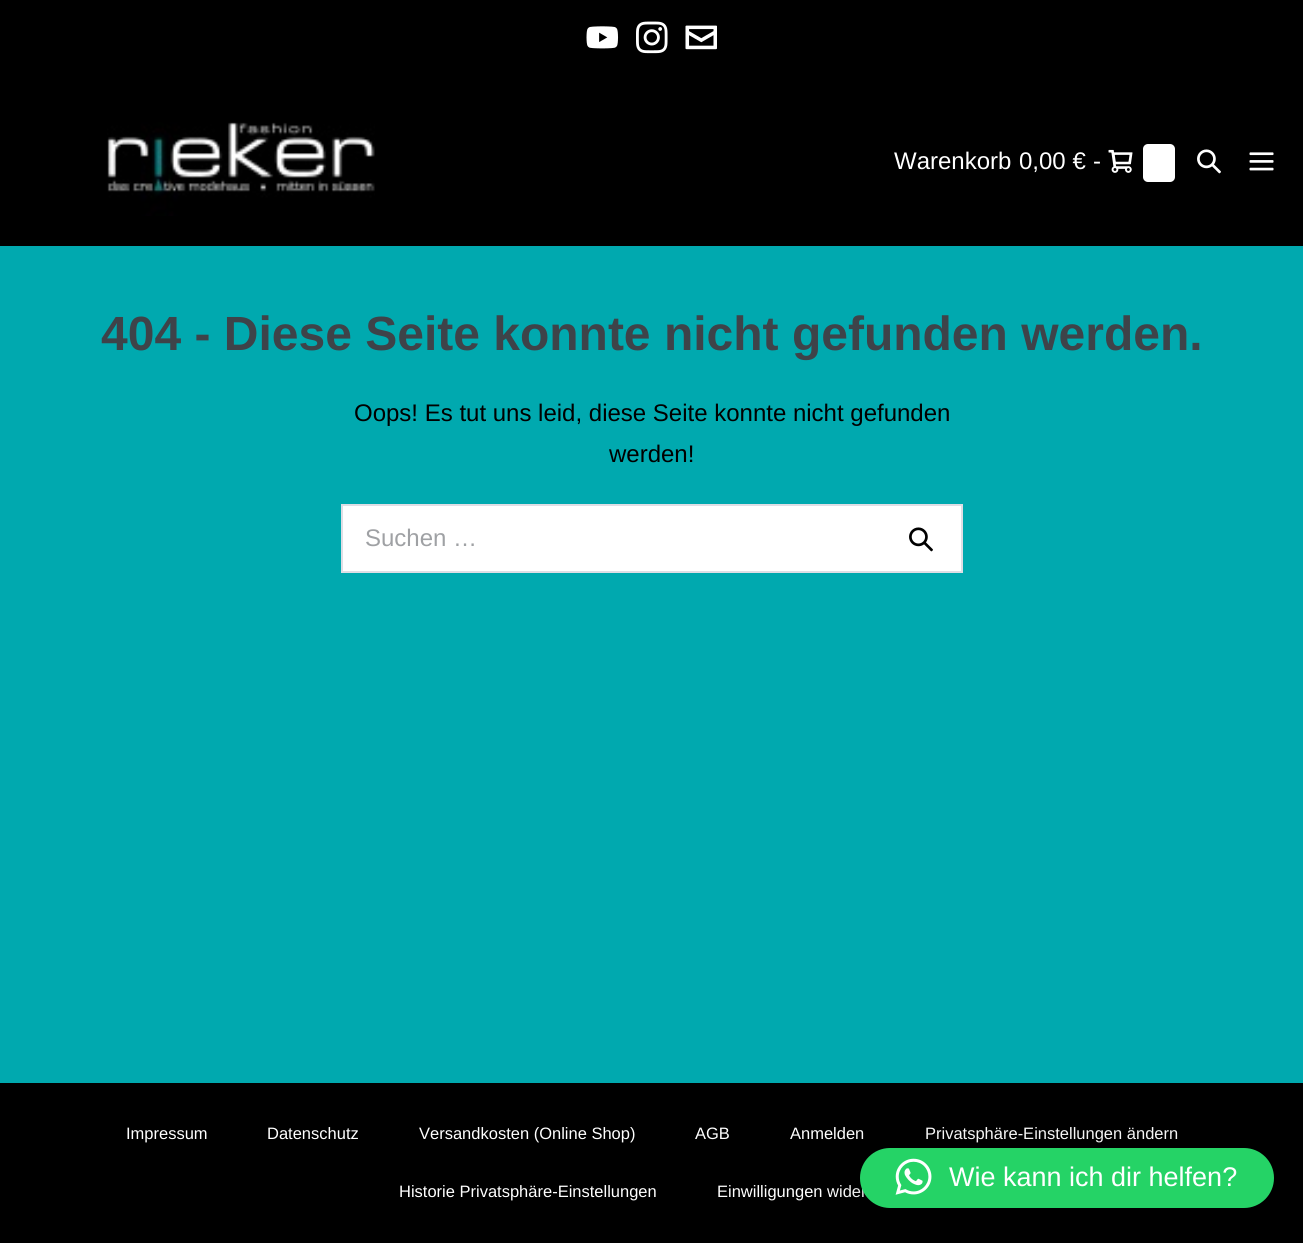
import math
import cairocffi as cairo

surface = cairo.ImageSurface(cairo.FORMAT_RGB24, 1303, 1243)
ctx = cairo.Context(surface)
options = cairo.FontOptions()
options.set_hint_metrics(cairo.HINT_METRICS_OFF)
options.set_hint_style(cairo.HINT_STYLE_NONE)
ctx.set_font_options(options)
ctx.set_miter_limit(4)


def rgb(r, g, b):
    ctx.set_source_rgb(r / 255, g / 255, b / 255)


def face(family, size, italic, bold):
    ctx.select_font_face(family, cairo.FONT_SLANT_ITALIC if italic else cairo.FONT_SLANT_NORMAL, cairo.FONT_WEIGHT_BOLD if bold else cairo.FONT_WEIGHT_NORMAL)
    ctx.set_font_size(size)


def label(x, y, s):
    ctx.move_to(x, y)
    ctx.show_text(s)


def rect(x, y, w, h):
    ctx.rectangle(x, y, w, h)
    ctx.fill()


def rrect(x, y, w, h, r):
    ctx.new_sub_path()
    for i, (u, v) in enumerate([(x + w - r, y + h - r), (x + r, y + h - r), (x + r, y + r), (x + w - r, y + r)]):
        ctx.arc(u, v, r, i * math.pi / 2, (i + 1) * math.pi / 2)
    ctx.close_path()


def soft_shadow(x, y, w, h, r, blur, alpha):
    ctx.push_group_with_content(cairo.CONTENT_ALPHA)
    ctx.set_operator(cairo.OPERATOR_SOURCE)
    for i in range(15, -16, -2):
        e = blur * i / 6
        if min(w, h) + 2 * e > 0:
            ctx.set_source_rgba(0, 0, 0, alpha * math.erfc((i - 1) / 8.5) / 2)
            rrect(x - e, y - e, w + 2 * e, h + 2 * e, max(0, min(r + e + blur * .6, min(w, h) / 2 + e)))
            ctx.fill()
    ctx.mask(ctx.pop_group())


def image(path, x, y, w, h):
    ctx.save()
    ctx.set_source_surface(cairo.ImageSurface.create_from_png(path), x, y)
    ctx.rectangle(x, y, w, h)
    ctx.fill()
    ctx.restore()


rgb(0, 169, 175)
ctx.paint()
rgb(0, 0, 0)
rect(0, 0, 1303, 246)
image('image0.png', 586, 26, 33, 23)
image('image1.png', 636, 21, 32, 33)
image('image2.png', 685, 25, 32, 25)
image('image3.png', 107, 122, 268, 94)
face('Liberation Sans', 24, 0, 0)
rgb(255, 255, 255)
label(894, 169, 'Warenkorb')
label(1019, 169, '0,00 €')
label(1093, 169, '-')
image('image4.png', 1108, 149, 25, 24)
rrect(1143, 144, 32, 38, 5)
ctx.fill()
image('image5.png', 1197, 149, 24, 25)
image('image6.png', 1249, 152, 25, 19)
face('Liberation Sans', 48, 0, 1)
rgb(62, 67, 73)
label(101, 350, '404 - Diese Seite konnte nicht gefunden werden.')
face('Liberation Sans', 24, 0, 0)
rgb(0, 0, 0)
label(354, 421, 'Oops! Es tut uns leid, diese Seite konnte nicht gefunden')
label(609, 462, 'werden!')
rgb(255, 255, 255)
ctx.rectangle(342, 505, 620, 67)
ctx.fill_preserve()
rgb(222, 222, 229)
ctx.stroke()
rgb(159, 161, 164)
label(365, 546, 'Suchen …')
image('image7.png', 909, 527, 24, 25)
rgb(0, 0, 0)
rect(0, 1083, 1303, 160)
face('Liberation Sans', 16.5, 0, 0)
rgb(255, 255, 255)
label(126, 1139, 'Impressum')
label(267, 1139, 'Datenschutz')
label(419, 1139, 'Versandkosten (Online Shop)')
label(695, 1139, 'AGB')
label(790, 1139, 'Anmelden')
label(925, 1139, 'Privatsphäre-Einstellungen ändern')
label(399, 1197, 'Historie Privatsphäre-Einstellungen')
label(717, 1197, 'Einwilligungen wider')
rgb(0, 0, 0)
soft_shadow(860, 1151, 414, 60, 30, 24, 0.16)
rgb(37, 211, 102)
rrect(860, 1148, 414, 60, 30)
ctx.fill()
image('image8.png', 895, 1158, 37, 37)
face('Liberation Sans', 27, 0, 0)
rgb(255, 255, 255)
label(949, 1186, 'Wie kann ich dir helfen?')
surface.write_to_png('render.png')
